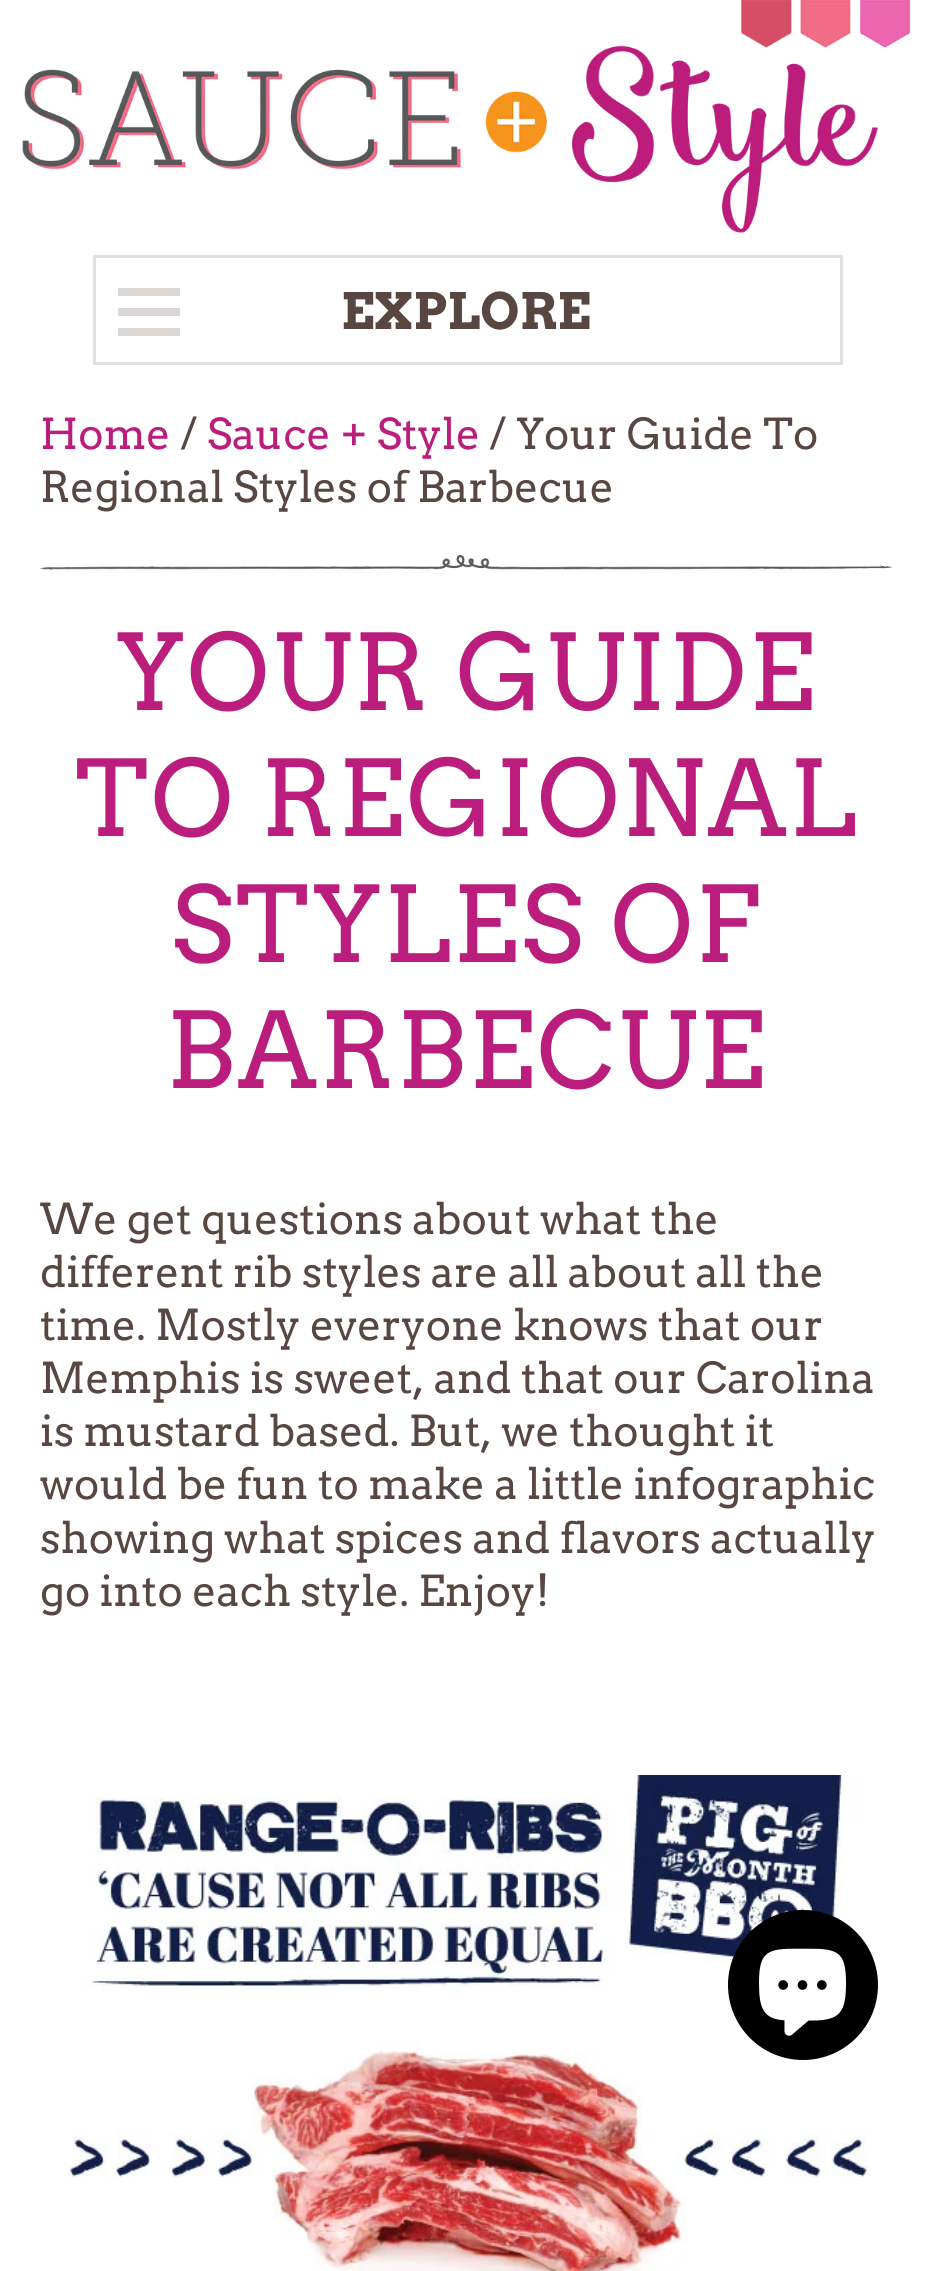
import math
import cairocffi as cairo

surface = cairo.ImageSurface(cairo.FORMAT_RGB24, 931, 2271)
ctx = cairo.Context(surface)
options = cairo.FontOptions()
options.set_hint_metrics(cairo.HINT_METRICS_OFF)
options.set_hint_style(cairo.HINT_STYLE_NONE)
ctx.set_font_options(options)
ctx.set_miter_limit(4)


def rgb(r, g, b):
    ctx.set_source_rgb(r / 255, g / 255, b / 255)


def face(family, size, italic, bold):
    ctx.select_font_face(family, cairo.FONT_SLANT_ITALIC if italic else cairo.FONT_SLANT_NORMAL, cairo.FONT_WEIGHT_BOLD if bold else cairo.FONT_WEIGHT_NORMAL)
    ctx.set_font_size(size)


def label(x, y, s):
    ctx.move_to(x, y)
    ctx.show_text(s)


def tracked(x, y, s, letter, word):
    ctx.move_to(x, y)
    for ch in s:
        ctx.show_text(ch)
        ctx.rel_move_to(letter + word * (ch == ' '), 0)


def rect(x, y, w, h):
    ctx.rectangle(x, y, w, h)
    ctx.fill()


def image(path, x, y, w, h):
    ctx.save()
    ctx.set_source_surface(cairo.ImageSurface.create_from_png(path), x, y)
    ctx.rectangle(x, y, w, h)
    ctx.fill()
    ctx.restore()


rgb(255, 255, 255)
ctx.paint()
image('image0.png', 22, 0, 888, 233)
ctx.rectangle(94.5, 256.5, 747, 107)
rgb(227, 225, 223)
ctx.set_line_width(3)
ctx.stroke()
rgb(219, 215, 213)
rect(118, 288, 62, 8)
face('Arvo', 50, 0, 1)
rgb(88, 71, 64)
label(341, 329, 'EXPLORE')
rgb(219, 215, 213)
rect(118, 308, 62, 8)
rect(118, 328, 62, 8)
face('Arvo', 42.5, 0, 0)
rgb(186, 29, 123)
label(40, 449, 'Home')
rgb(88, 71, 64)
label(180, 449, '/')
rgb(186, 29, 123)
label(207, 449, 'Sauce + Style')
rgb(88, 71, 64)
label(489, 449, '/ Your Guide To')
label(40, 502, 'Regional Styles of Barbecue')
image('image1.png', 40, 555, 853, 15)
face('Arvo', 105, 0, 0)
rgb(186, 29, 123)
tracked(115, 710, 'YOUR GUIDE', 2.5, 0)
tracked(75, 836, 'TO REGIONAL', 2.5, 0)
tracked(171, 962, 'STYLES OF', 2.5, 0)
tracked(166, 1088, 'BARBECUE', 2.5, 0)
face('Arvo', 42.5, 0, 0)
rgb(88, 71, 64)
label(40, 1234, 'We get questions about what the')
label(40, 1287, 'different rib styles are all about all the')
label(40, 1340, 'time. Mostly everyone knows that our')
label(40, 1393, 'Memphis is sweet, and that our Carolina')
label(40, 1446, 'is mustard based. But, we thought it')
label(40, 1499, 'would be fun to make a little infographic')
label(40, 1553, 'showing what spices and flavors actually')
label(40, 1606, 'go into each style. Enjoy!')
image('image2.png', 67, 1775, 802, 496)
rgb(0, 0, 0)
ctx.arc(803, 1985, 75, 0, 2 * math.pi)
ctx.fill()
image('image3.png', 759, 1948, 87, 88)
surface.write_to_png('render.png')
